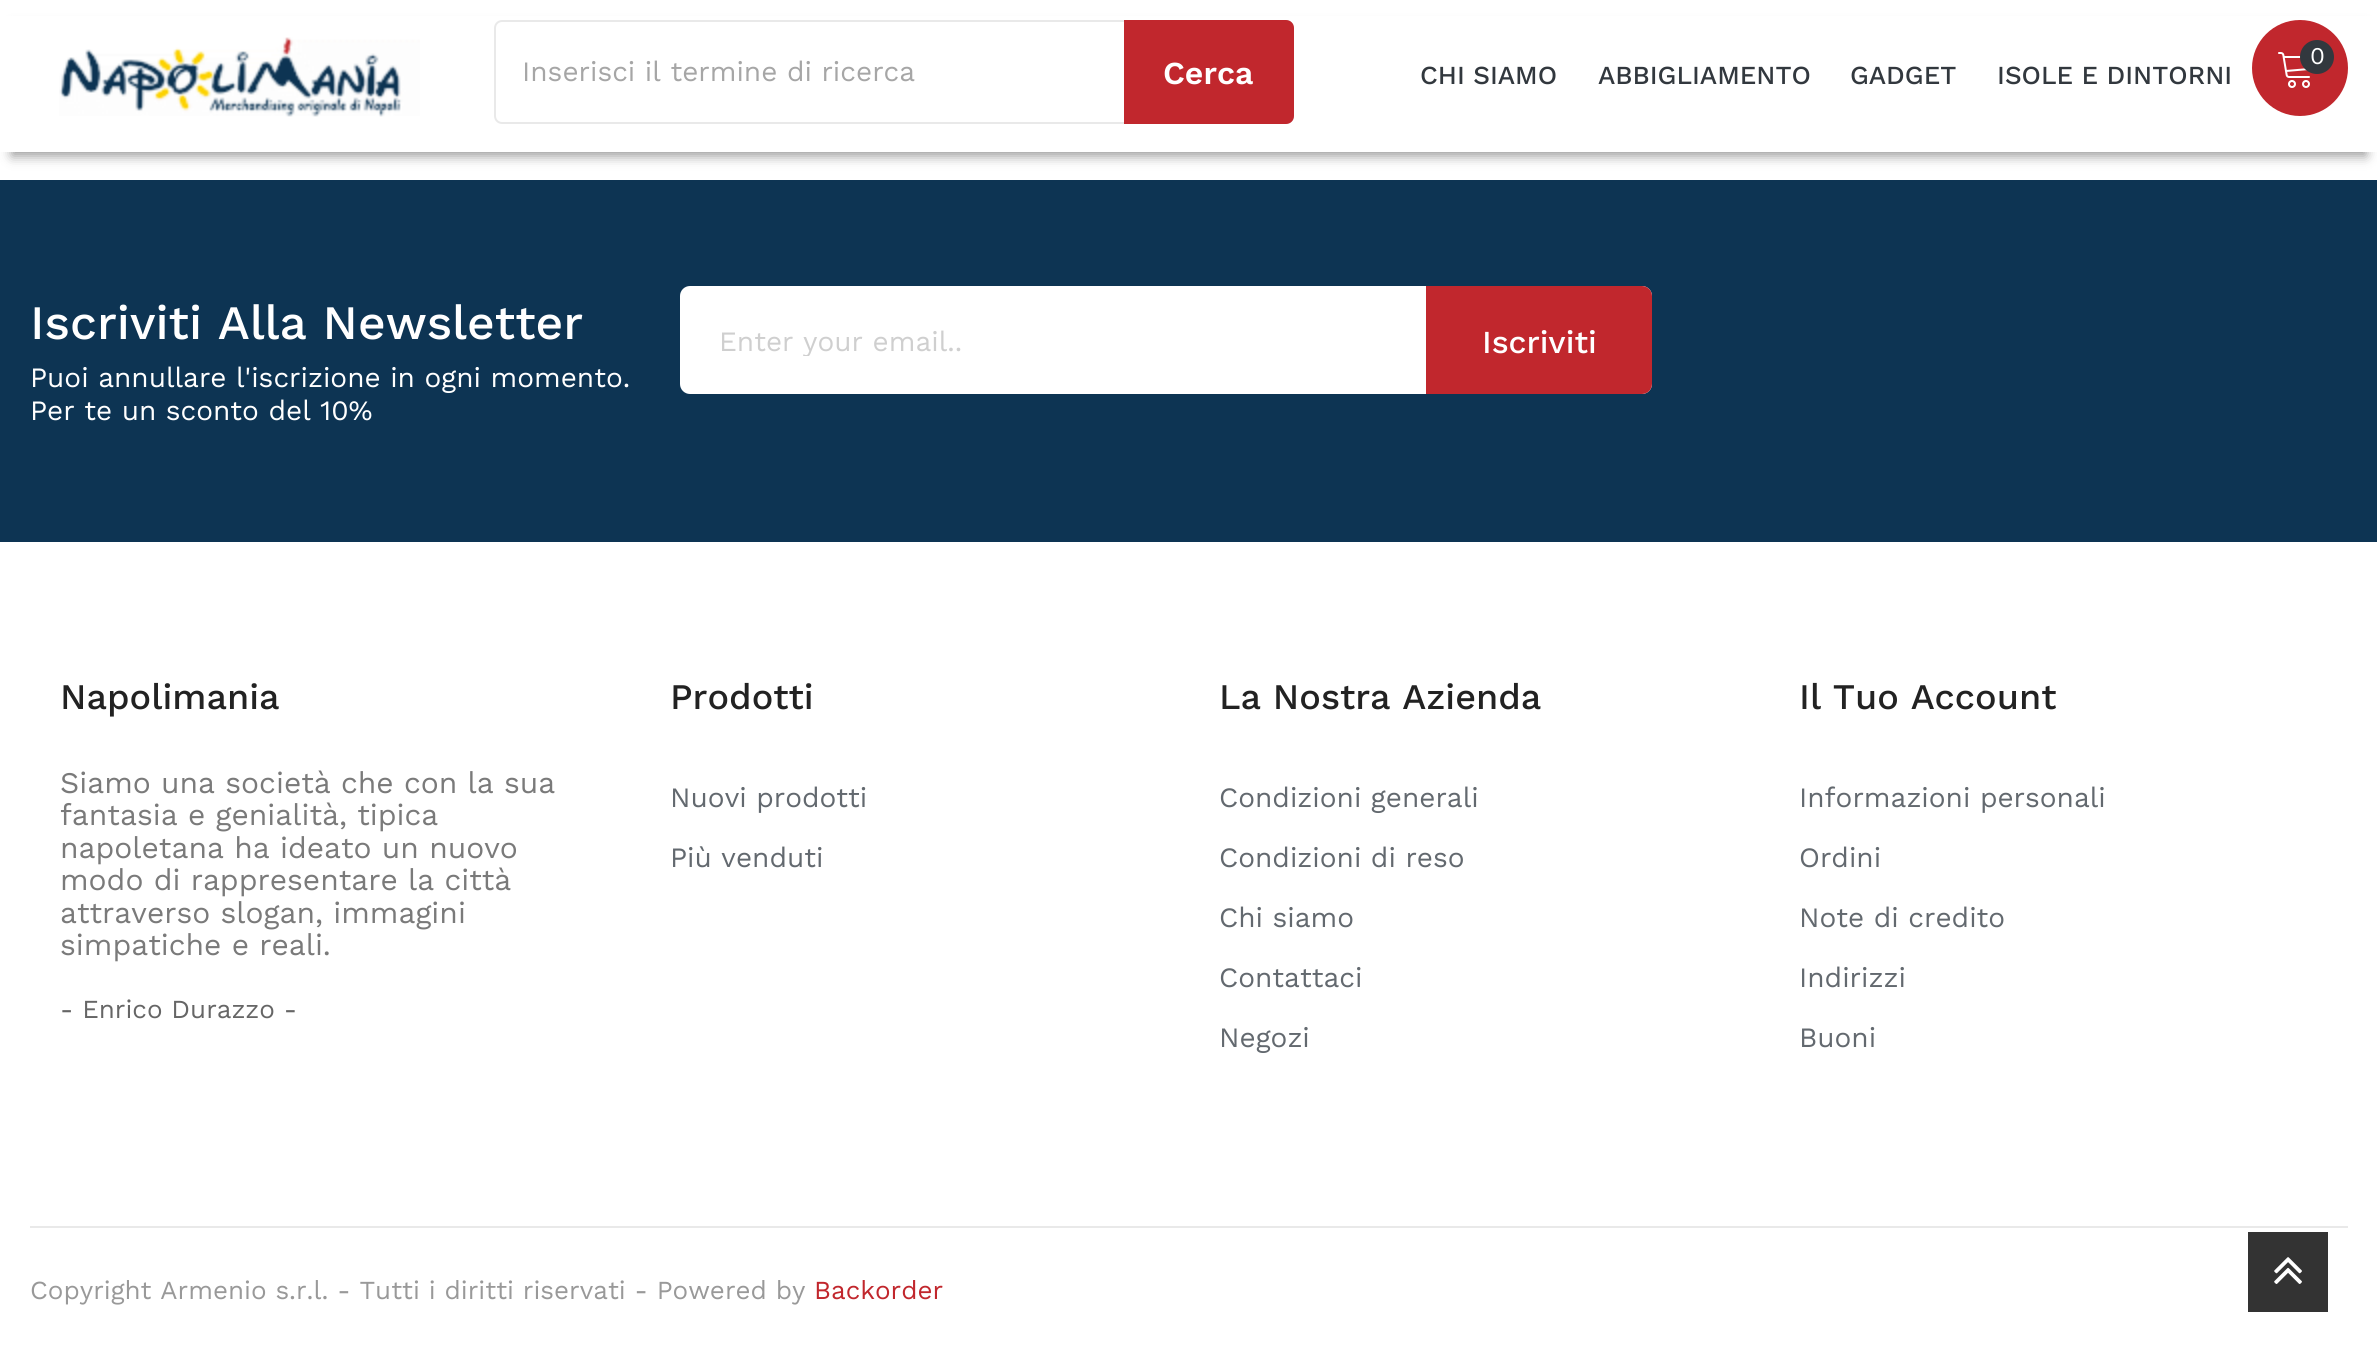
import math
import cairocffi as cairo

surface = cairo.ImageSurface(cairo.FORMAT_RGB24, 2377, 1362)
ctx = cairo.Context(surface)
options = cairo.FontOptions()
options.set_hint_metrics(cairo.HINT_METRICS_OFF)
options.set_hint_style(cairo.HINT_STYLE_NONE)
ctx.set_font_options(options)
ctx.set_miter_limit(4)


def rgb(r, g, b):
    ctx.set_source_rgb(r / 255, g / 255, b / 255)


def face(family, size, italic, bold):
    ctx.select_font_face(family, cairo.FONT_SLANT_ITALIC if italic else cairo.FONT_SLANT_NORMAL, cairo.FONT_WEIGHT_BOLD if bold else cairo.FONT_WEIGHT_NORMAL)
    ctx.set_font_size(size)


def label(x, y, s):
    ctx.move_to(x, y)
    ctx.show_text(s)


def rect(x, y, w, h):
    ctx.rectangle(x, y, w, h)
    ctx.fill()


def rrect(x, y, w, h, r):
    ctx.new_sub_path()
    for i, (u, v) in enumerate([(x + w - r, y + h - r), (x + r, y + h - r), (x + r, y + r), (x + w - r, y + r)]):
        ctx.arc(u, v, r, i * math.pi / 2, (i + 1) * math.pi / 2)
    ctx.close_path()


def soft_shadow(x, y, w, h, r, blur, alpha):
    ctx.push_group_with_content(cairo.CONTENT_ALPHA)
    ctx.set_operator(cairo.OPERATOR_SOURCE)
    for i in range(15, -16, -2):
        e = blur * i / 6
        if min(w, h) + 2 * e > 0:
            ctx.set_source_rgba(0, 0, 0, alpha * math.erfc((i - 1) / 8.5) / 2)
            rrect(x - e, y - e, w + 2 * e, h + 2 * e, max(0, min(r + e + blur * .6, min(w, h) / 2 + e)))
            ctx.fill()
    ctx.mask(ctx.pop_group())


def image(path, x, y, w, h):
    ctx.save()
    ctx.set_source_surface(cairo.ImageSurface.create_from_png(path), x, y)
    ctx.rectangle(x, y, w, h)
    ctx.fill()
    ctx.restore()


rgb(255, 255, 255)
ctx.paint()
rgb(0, 0, 0)
soft_shadow(12, 28, 2354, 128, 0, 6, 0.4)
rgb(255, 255, 255)
rect(0, 16, 2377, 136)
image('image0.png', 59, 37, 361, 80)
rgb(193, 39, 45)
ctx.arc(2300, 68, 48, 0, 2 * math.pi)
ctx.fill()
image('image1.png', 2278, 52, 32, 36)
rgb(50, 56, 62)
ctx.arc(2317, 57, 17, 0, 2 * math.pi)
ctx.fill()
face('Work Sans', 24, 0, 0)
rgb(255, 255, 255)
label(2310, 64, '0')
rrect(495, 21, 798, 102, 7)
rgb(233, 233, 233)
ctx.stroke()
face('Work Sans', 28, 0, 0)
rgb(166, 166, 166)
label(522, 81, 'Inserisci il termine di ricerca')
rgb(193, 39, 45)
ctx.new_path()
ctx.move_to(1124, 20)
ctx.line_to(1286, 20)
ctx.curve_to(1290.5, 20, 1294, 23.5, 1294, 28)
ctx.line_to(1294, 116)
ctx.curve_to(1294, 120.5, 1290.5, 124, 1286, 124)
ctx.line_to(1124, 124)
ctx.close_path()
ctx.fill()
face('Work Sans SemiBold', 32, 0, 0)
rgb(255, 255, 255)
label(1163, 84, 'Cerca')
face('Work Sans Medium', 26, 0, 0)
rgb(50, 56, 62)
label(1420, 84, 'CHI SIAMO')
label(1598, 84, 'ABBIGLIAMENTO')
label(1850, 84, 'GADGET')
label(1997, 84, 'ISOLE E DINTORNI')
rgb(13, 52, 83)
rect(0, 180, 2377, 362)
face('Work Sans Medium', 48, 0, 0)
rgb(255, 255, 255)
label(30, 339, 'Iscriviti Alla Newsletter')
face('Work Sans', 28, 0, 0)
label(30, 387, 'Puoi annullare l\'iscrizione in ogni momento.')
label(30, 420, 'Per te un sconto del 10%')
rrect(680, 286, 972, 108, 10)
ctx.fill()
ctx.save()
ctx.rectangle(720, 324, 892, 32)
ctx.clip()
rgb(207, 207, 207)
label(719, 351, 'Enter your email..')
ctx.restore()
rgb(193, 39, 45)
ctx.new_path()
ctx.move_to(1426, 286)
ctx.line_to(1642, 286)
ctx.curve_to(1647.5, 286, 1652, 290.5, 1652, 296)
ctx.line_to(1652, 384)
ctx.curve_to(1652, 389.5, 1647.5, 394, 1642, 394)
ctx.line_to(1426, 394)
ctx.close_path()
ctx.fill()
face('Work Sans Medium', 32, 0, 0)
rgb(255, 255, 255)
label(1482, 353, 'Iscriviti')
face('Work Sans Medium', 36, 0, 0)
rgb(34, 34, 34)
label(60, 709, 'Napolimania')
face('Work Sans', 30, 0, 0)
rgb(122, 122, 122)
label(60, 793, 'Siamo una società che con la sua')
label(60, 825, 'fantasia e genialità, tipica')
label(60, 858, 'napoletana ha ideato un nuovo')
label(60, 890, 'modo di rappresentare la città')
label(60, 923, 'attraverso slogan, immagini')
label(60, 955, 'simpatiche e reali.')
face('Work Sans', 26, 0, 0)
rgb(102, 102, 102)
label(60, 1018, '- Enrico Durazzo -')
face('Work Sans Medium', 36, 0, 0)
rgb(34, 34, 34)
label(670, 709, 'Prodotti')
face('Work Sans', 28, 0, 0)
rgb(99, 105, 111)
label(670, 807, 'Nuovi prodotti')
label(670, 867, 'Più venduti')
face('Work Sans Medium', 36, 0, 0)
rgb(34, 34, 34)
label(1219, 709, 'La Nostra Azienda')
face('Work Sans', 28, 0, 0)
rgb(99, 105, 111)
label(1219, 807, 'Condizioni generali')
label(1219, 867, 'Condizioni di reso')
label(1219, 927, 'Chi siamo')
label(1219, 987, 'Contattaci')
label(1219, 1047, 'Negozi')
face('Work Sans Medium', 36, 0, 0)
rgb(34, 34, 34)
label(1799, 709, 'Il Tuo Account')
face('Work Sans', 28, 0, 0)
rgb(99, 105, 111)
label(1799, 807, 'Informazioni personali')
label(1799, 867, 'Ordini')
label(1799, 927, 'Note di credito')
label(1799, 987, 'Indirizzi')
label(1799, 1047, 'Buoni')
rgb(233, 233, 233)
rect(30, 1226, 2318, 2)
face('Work Sans', 26, 0, 0)
rgb(153, 153, 153)
label(30, 1299, 'Copyright Armenio s.r.l. - Tutti i diritti riservati - Powered by')
rgb(193, 39, 45)
label(814, 1299, 'Backorder')
rgb(51, 51, 51)
rect(2248, 1232, 80, 80)
image('image2.png', 2274, 1257, 28, 27)
surface.write_to_png('render.png')
